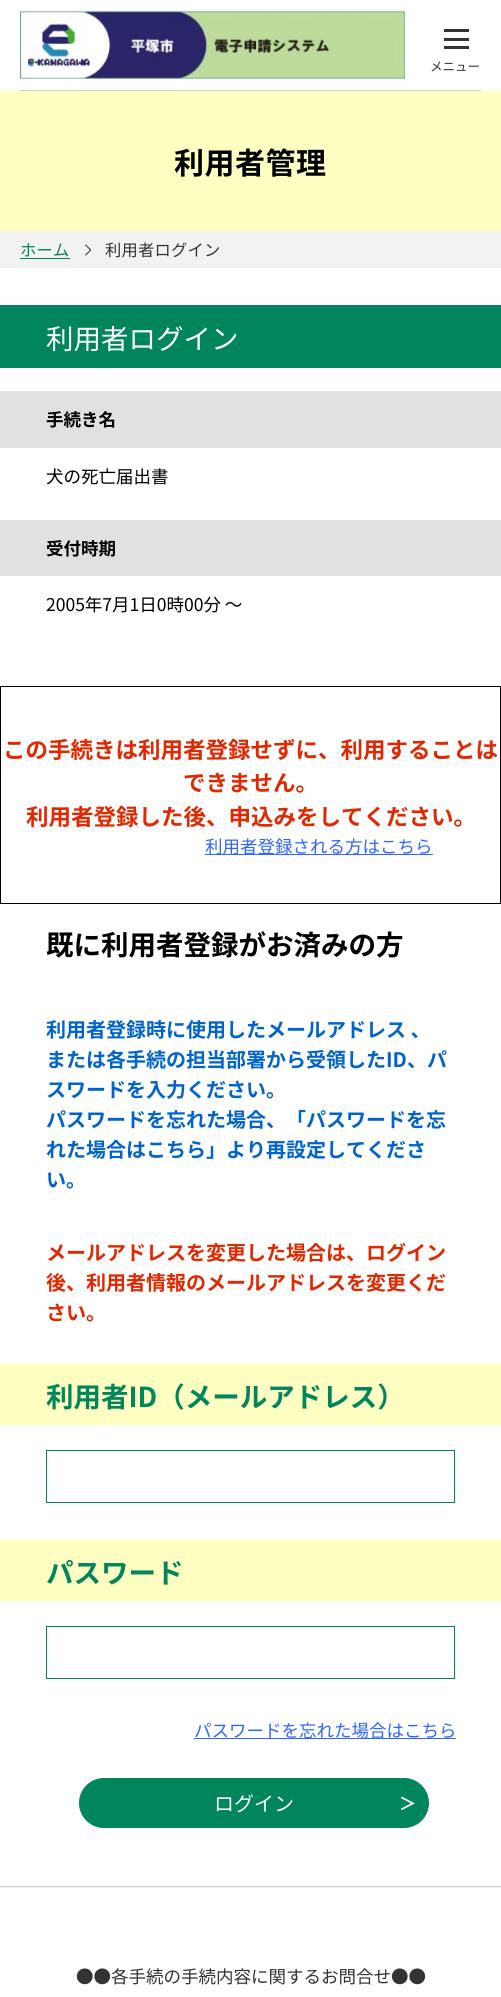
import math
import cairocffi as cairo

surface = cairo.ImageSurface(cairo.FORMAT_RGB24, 501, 1997)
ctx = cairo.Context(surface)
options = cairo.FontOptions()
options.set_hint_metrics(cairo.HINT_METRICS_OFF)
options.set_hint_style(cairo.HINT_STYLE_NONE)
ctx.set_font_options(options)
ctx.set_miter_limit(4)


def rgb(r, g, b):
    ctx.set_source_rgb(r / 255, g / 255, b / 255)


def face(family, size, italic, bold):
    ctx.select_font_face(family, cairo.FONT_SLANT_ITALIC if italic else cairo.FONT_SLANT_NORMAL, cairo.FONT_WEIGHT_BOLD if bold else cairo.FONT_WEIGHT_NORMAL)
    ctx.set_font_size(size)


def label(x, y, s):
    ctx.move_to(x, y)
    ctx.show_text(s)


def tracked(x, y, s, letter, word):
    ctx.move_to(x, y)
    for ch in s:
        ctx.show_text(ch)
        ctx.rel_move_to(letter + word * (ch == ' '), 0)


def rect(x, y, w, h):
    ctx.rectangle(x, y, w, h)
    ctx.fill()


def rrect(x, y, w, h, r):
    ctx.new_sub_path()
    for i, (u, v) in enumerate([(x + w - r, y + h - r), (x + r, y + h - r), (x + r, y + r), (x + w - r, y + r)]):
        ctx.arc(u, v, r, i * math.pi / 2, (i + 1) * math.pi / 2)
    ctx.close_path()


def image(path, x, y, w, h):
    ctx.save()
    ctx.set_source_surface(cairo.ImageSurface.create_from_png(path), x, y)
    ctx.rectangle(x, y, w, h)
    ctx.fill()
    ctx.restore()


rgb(255, 255, 255)
ctx.paint()
image('image0.png', 20, 10, 385, 69)
rgb(51, 51, 51)
rect(444, 38, 25, 3)
rect(444, 29, 25, 3)
rect(444, 46, 25, 3)
face('Noto Sans JP', 12.5, 0, 0)
label(430, 71, 'メニュー')
rgb(204, 204, 204)
rect(20, 90, 461, 1)
rgb(255, 255, 194)
rect(0, 91, 501, 140)
face('Noto Sans JP', 30, 0, 1)
rgb(0, 0, 0)
tracked(174, 174, '利用者管理', 0.5, 0)
rgb(242, 242, 242)
rect(0, 231, 501, 37)
face('Noto Sans JP', 16.25, 0, 0)
rgb(0, 133, 92)
tracked(20, 256, 'ホーム', 0.25, 0)
rect(20, 258, 50, 1)
image('image1.png', 85, 244, 7, 12)
rgb(51, 51, 51)
tracked(105, 256, '利用者ログイン', 0.25, 0)
rgb(0, 133, 92)
rect(0, 305, 501, 63)
face('Noto Sans JP', 27.5, 0, 0)
rgb(255, 255, 255)
label(46, 349, '利用者ログイン')
rgb(223, 225, 226)
rect(0, 391, 501, 57)
face('Noto Sans JP', 17.5, 0, 1)
rgb(0, 0, 0)
label(46, 426, '手続き名')
face('Noto Sans JP', 17.5, 0, 0)
label(46, 483, '犬の死亡届出書')
rgb(223, 225, 226)
rect(0, 520, 501, 56)
face('Noto Sans JP', 17.5, 0, 1)
rgb(0, 0, 0)
label(46, 555, '受付時期')
face('Noto Sans JP', 17.5, 0, 0)
label(46, 611, '2005年7月1日0時00分 ～')
ctx.rectangle(0.5, 686.5, 500, 217)
ctx.set_line_width(1)
ctx.stroke()
face('Noto Sans JP', 22.5, 0, 1)
rgb(225, 40, 0)
label(3, 758, 'この手続きは利用者登録せずに、利用することは')
label(183, 791, 'できません。')
label(26, 825, '利用者登録した後、申込みをしてください。')
rgb(46, 102, 255)
rect(205, 854, 228, 1)
face('Noto Sans JP', 17.5, 0, 0)
label(205, 853, '利用者登録される方はこちら')
face('Noto Sans JP', 27.5, 0, 1)
rgb(0, 0, 0)
label(46, 955, '既に利用者登録がお済みの方')
face('Noto Sans JP', 20, 0, 1)
rgb(1, 100, 204)
label(46, 1037, '利用者登録時に使用したメールアドレス 、')
label(46, 1067, 'または各手続の担当部署から受領したID、パ')
label(46, 1097, 'スワードを入力ください。')
label(46, 1127, 'パスワードを忘れた場合、「パスワードを忘')
label(46, 1157, 'れた場合はこちら」より再設定してくださ')
label(46, 1187, 'い。')
rgb(225, 40, 0)
label(46, 1260, 'メールアドレスを変更した場合は、ログイン')
label(46, 1290, '後、利用者情報のメールアドレスを変更くだ')
label(46, 1320, 'さい。')
rgb(255, 255, 194)
rect(0, 1364, 501, 61)
face('Noto Sans JP', 27.5, 0, 1)
rgb(0, 133, 92)
label(46, 1407, '利用者ID（メールアドレス）')
ctx.rectangle(46.5, 1450.5, 408, 52)
ctx.stroke()
rgb(255, 255, 194)
rect(0, 1540, 501, 61)
rgb(0, 133, 92)
label(46, 1583, 'パスワード')
ctx.rectangle(46.5, 1626.5, 408, 52)
ctx.stroke()
rgb(46, 102, 255)
rect(194, 1738, 262, 1)
face('Noto Sans JP', 17.5, 0, 0)
label(194, 1737, 'パスワードを忘れた場合はこちら')
rgb(0, 133, 92)
rrect(79.5, 1778.5, 349, 49, 24.5)
ctx.fill_preserve()
ctx.stroke()
face('Noto Sans JP', 20, 0, 0)
rgb(255, 255, 255)
label(214, 1811, 'ログイン')
face('Noto Sans JP', 17.5, 0, 1)
label(399, 1810, '＞')
rgb(242, 242, 242)
rect(0, 1887, 501, 1)
rgb(204, 204, 204)
rect(0, 1886, 501, 1)
face('Noto Sans JP', 17.5, 0, 0)
rgb(51, 51, 51)
label(76, 1983, '●●各手続の手続内容に関するお問合せ●●')
surface.write_to_png('render.png')
